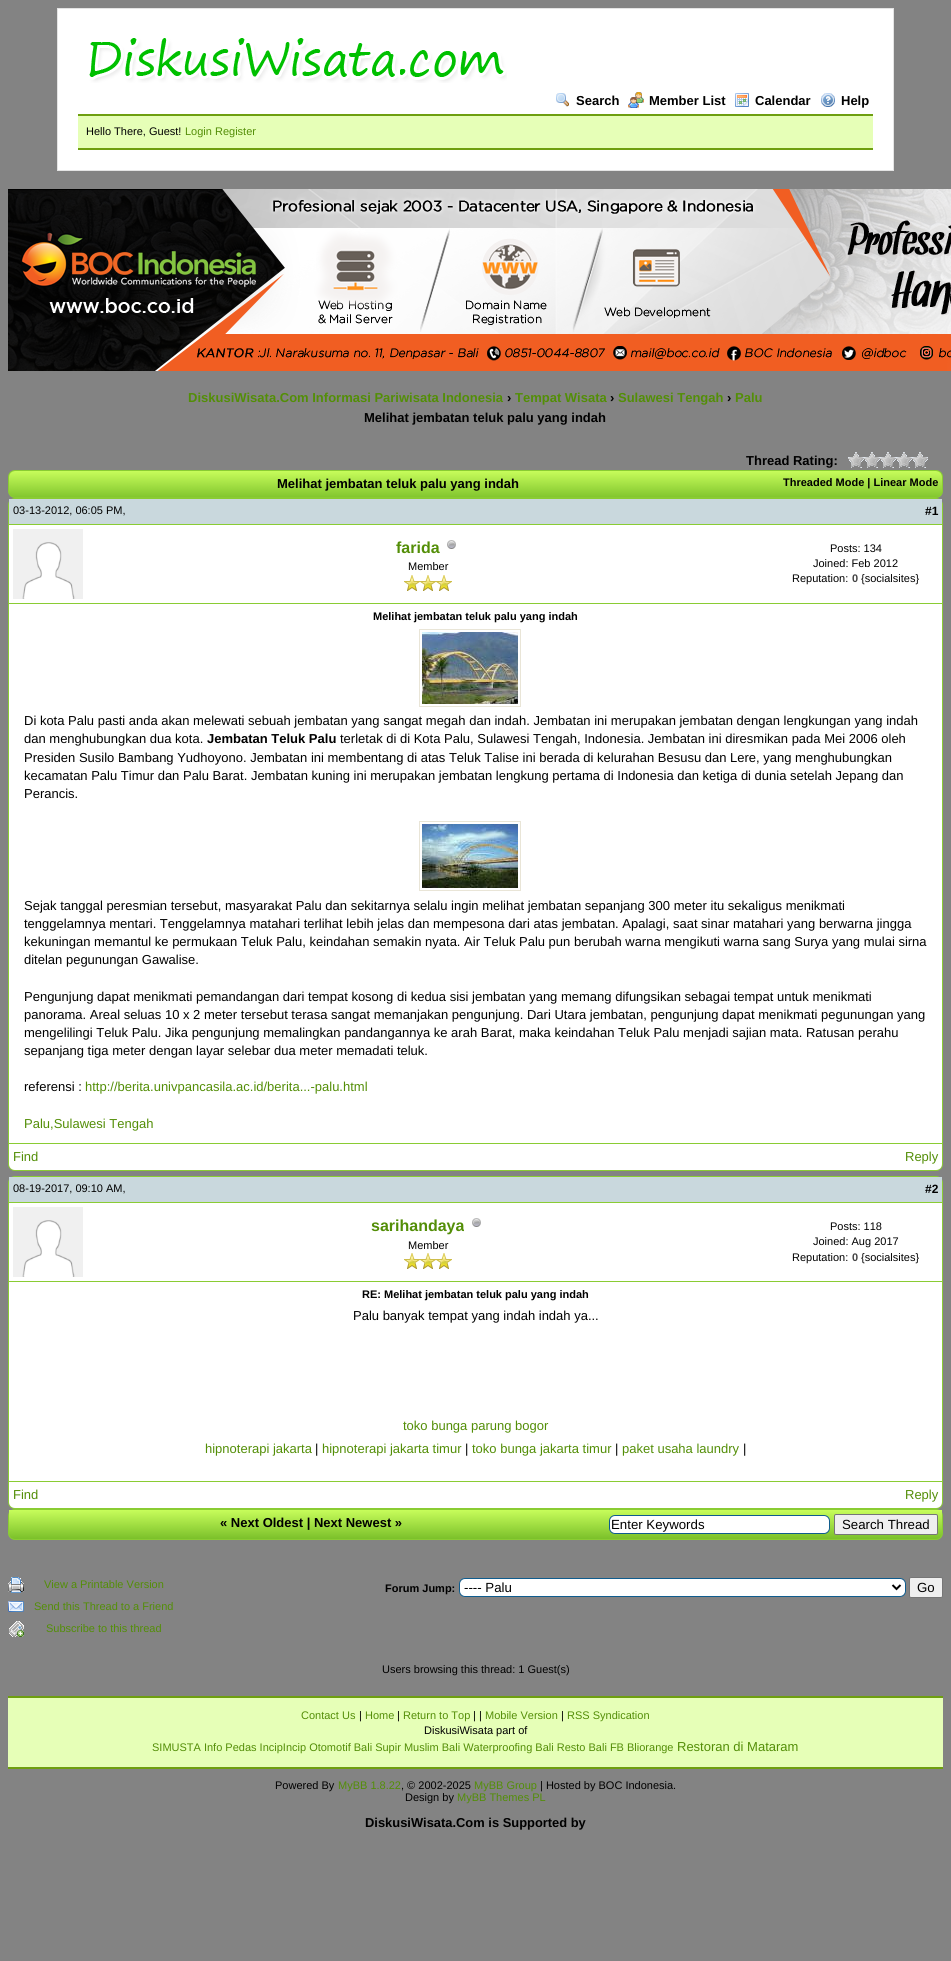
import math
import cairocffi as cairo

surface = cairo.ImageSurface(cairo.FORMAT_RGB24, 951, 1961)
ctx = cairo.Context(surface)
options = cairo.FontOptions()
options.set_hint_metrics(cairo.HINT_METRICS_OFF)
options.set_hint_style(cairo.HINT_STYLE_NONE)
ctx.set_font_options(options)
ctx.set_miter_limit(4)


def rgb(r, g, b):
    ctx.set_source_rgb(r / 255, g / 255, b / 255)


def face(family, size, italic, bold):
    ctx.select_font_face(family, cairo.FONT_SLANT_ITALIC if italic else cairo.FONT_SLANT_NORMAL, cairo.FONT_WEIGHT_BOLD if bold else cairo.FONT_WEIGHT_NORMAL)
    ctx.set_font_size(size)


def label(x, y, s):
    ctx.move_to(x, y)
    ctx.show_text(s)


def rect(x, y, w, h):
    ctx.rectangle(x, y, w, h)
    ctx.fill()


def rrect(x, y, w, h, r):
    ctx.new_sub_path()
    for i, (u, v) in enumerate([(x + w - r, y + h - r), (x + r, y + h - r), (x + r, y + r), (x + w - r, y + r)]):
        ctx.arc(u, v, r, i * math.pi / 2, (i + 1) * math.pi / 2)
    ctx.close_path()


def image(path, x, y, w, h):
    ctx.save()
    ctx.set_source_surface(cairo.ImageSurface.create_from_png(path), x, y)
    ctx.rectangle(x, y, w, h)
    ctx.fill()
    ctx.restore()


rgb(131, 131, 131)
ctx.paint()
rgb(255, 255, 255)
ctx.rectangle(57.5, 8.5, 836, 162)
ctx.fill_preserve()
rgb(228, 228, 228)
ctx.set_line_width(1)
ctx.stroke()
image('image0.png', 89, 38, 418, 45)
image('image1.png', 556, 93, 13, 14)
face('Liberation Sans', 13, 0, 1)
rgb(0, 0, 0)
label(576, 105, 'Search')
image('image2.png', 628, 92, 16, 16)
label(649, 105, 'Member List')
image('image3.png', 735, 93, 14, 14)
label(755, 105, 'Calendar')
image('image4.png', 821, 93, 14, 14)
label(841, 105, 'Help')
rgb(230, 255, 183)
rect(78, 116, 795, 32)
rgb(110, 159, 16)
rect(78, 114, 795, 2)
rect(78, 148, 795, 2)
face('Liberation Sans', 11, 0, 0)
rgb(0, 0, 0)
label(86, 135, 'Hello There, Guest!')
rgb(83, 142, 7)
label(185, 135, 'Login Register')
image('image5.png', 8, 189, 943, 182)
face('Liberation Sans', 13, 0, 1)
label(188, 402, 'DiskusiWisata.Com Informasi Pariwisata Indonesia')
rgb(0, 0, 0)
label(507, 402, '›')
rgb(83, 142, 7)
label(515, 402, 'Tempat Wisata')
rgb(0, 0, 0)
label(610, 402, '›')
rgb(83, 142, 7)
label(618, 402, 'Sulawesi Tengah')
rgb(0, 0, 0)
label(727, 402, '›')
rgb(83, 142, 7)
label(735, 402, 'Palu')
rgb(0, 0, 0)
label(364, 422, 'Melihat jembatan teluk palu yang indah')
label(746, 465, 'Thread Rating:')
image('image6.png', 848, 452, 80, 16)
rgb(138, 204, 51)
rrect(8, 470, 935, 28, 7)
ctx.fill()
image('image7.png', 9, 471, 933, 26)
rgb(0, 0, 0)
label(277, 488, 'Melihat jembatan teluk palu yang indah')
face('Liberation Sans', 11, 0, 1)
label(783, 486, 'Threaded Mode | Linear Mode')
rgb(138, 204, 51)
rrect(8, 498, 935, 673, 7)
ctx.fill()
rgb(201, 216, 221)
rect(9, 499, 933, 25)
face('Liberation Sans', 11, 0, 0)
rgb(0, 0, 0)
label(13, 514, '03-13-2012, 06:05 PM,')
face('Liberation Sans', 12, 0, 1)
label(925, 515, '#1')
rgb(255, 255, 255)
rect(9, 525, 933, 78)
image('image8.png', 13, 529, 70, 70)
face('Liberation Sans', 16, 0, 1)
rgb(83, 142, 7)
label(396, 553, 'farida')
image('image9.png', 447, 540, 9, 9)
face('Liberation Sans', 11, 0, 0)
rgb(0, 0, 0)
label(408, 570, 'Member')
image('image10.png', 404, 575, 16, 16)
image('image10.png', 420, 575, 16, 16)
image('image10.png', 436, 575, 16, 16)
label(830, 552, 'Posts: 134')
label(813, 567, 'Joined: Feb 2012')
label(792, 582, 'Reputation:')
face('Liberation Sans', 11, 0, 1)
rgb(68, 68, 68)
label(852, 582, '0')
face('Liberation Sans', 11, 0, 0)
rgb(0, 0, 0)
label(861, 582, '{socialsites}')
rgb(255, 255, 255)
rect(9, 604, 933, 539)
face('Liberation Sans', 11, 0, 1)
rgb(0, 0, 0)
label(373, 620, 'Melihat jembatan teluk palu yang indah')
ctx.rectangle(419.5, 629.5, 101, 77)
rgb(233, 229, 215)
ctx.stroke()
image('image11.png', 422, 632, 96, 72)
face('Liberation Sans', 13, 0, 0)
rgb(0, 0, 0)
label(24, 725, 'Di kota Palu pasti anda akan melewati sebuah jembatan yang sangat megah dan indah. Jembatan ini merupakan jembatan dengan lengkungan yang indah')
label(24, 743, 'dan menghubungkan dua kota.')
face('Liberation Sans', 13, 0, 1)
label(207, 743, 'Jembatan Teluk Palu')
face('Liberation Sans', 13, 0, 0)
label(340, 743, 'terletak di di Kota Palu, Sulawesi Tengah, Indonesia. Jembatan ini diresmikan pada Mei 2006 oleh')
label(24, 762, 'Presiden Susilo Bambang Yudhoyono. Jembatan ini membentang di atas Teluk Talise ini berada di kelurahan Besusu dan Lere, yang menghubungkan')
label(24, 780, 'kecamatan Palu Timur dan Palu Barat. Jembatan kuning ini merupakan jembatan lengkung pertama di Indonesia dan ketiga di dunia setelah Jepang dan')
label(24, 798, 'Perancis.')
ctx.rectangle(419.5, 821.5, 101, 69)
rgb(233, 229, 215)
ctx.stroke()
image('image12.png', 422, 824, 96, 64)
rgb(0, 0, 0)
label(24, 910, 'Sejak tanggal peresmian tersebut, masyarakat Palu dan sekitarnya selalu ingin melihat jembatan sepanjang 300 meter itu sekaligus menikmati')
label(24, 928, 'tenggelamnya mentari. Tenggelamnya matahari terlihat lebih jelas dan mempesona dari atas jembatan. Apalagi, saat sinar matahari yang berwarna jingga')
label(24, 946, 'kekuningan memantul ke permukaan Teluk Palu, keindahan semakin nyata. Air Teluk Palu pun berubah warna mengikuti warna sang Surya yang mulai sirna')
label(24, 964, 'ditelan pegunungan Gawalise.')
label(24, 1001, 'Pengunjung dapat menikmati pemandangan dari tempat kosong di kedua sisi jembatan yang memang difungsikan sebagai tempat untuk menikmati')
label(24, 1019, 'panorama. Areal seluas 10 x 2 meter tersebut terasa sangat memanjakan pengunjung. Dari Utara jembatan, pengunjung dapat menikmati pegunungan yang')
label(24, 1037, 'mengelilingi Teluk Palu. Jika pengunjung memalingkan pandangannya ke arah Barat, maka keindahan Teluk Palu menjadi sajian mata. Ratusan perahu')
label(24, 1055, 'sepanjang tiga meter dengan layar selebar dua meter memadati teluk.')
label(24, 1091, 'referensi :')
rgb(83, 142, 7)
label(85, 1091, 'http://berita.univpancasila.ac.id/berita...-palu.html')
label(24, 1128, 'Palu,Sulawesi Tengah')
rgb(255, 255, 255)
ctx.new_path()
ctx.move_to(9, 1144)
ctx.line_to(942, 1144)
ctx.line_to(942, 1164)
ctx.curve_to(942, 1167.5, 939.5, 1170, 936, 1170)
ctx.line_to(15, 1170)
ctx.curve_to(11.5, 1170, 9, 1167.5, 9, 1164)
ctx.close_path()
ctx.fill()
rgb(83, 142, 7)
label(13, 1161, 'Find')
label(905, 1161, 'Reply')
rgb(138, 204, 51)
rrect(8, 1176, 935, 333, 7)
ctx.fill()
rgb(201, 216, 221)
rect(9, 1177, 933, 25)
face('Liberation Sans', 11, 0, 0)
rgb(0, 0, 0)
label(13, 1192, '08-19-2017, 09:10 AM,')
face('Liberation Sans', 12, 0, 1)
label(925, 1193, '#2')
rgb(255, 255, 255)
rect(9, 1203, 933, 78)
image('image8.png', 13, 1207, 70, 70)
face('Liberation Sans', 16, 0, 1)
rgb(83, 142, 7)
label(371, 1231, 'sarihandaya')
image('image9.png', 472, 1218, 9, 9)
face('Liberation Sans', 11, 0, 0)
rgb(0, 0, 0)
label(408, 1249, 'Member')
image('image10.png', 404, 1253, 16, 16)
image('image10.png', 420, 1253, 16, 16)
image('image10.png', 436, 1253, 16, 16)
label(830, 1230, 'Posts: 118')
label(813, 1245, 'Joined: Aug 2017')
label(792, 1261, 'Reputation:')
face('Liberation Sans', 11, 0, 1)
rgb(68, 68, 68)
label(852, 1261, '0')
face('Liberation Sans', 11, 0, 0)
rgb(0, 0, 0)
label(861, 1261, '{socialsites}')
rgb(255, 255, 255)
rect(9, 1282, 933, 199)
face('Liberation Sans', 11, 0, 1)
rgb(0, 0, 0)
label(362, 1298, 'RE: Melihat jembatan teluk palu yang indah')
face('Liberation Sans', 13, 0, 0)
label(353, 1320, 'Palu banyak tempat yang indah indah ya...')
rgb(83, 142, 7)
label(403, 1430, 'toko bunga parung bogor')
label(205, 1453, 'hipnoterapi jakarta')
rgb(0, 0, 0)
label(315, 1453, '|')
rgb(83, 142, 7)
label(322, 1453, 'hipnoterapi jakarta timur')
rgb(0, 0, 0)
label(465, 1453, '|')
rgb(83, 142, 7)
label(472, 1453, 'toko bunga jakarta timur')
rgb(0, 0, 0)
label(615, 1453, '|')
rgb(83, 142, 7)
label(622, 1453, 'paket usaha laundry')
rgb(0, 0, 0)
label(743, 1453, '|')
rgb(255, 255, 255)
ctx.new_path()
ctx.move_to(9, 1482)
ctx.line_to(942, 1482)
ctx.line_to(942, 1502)
ctx.curve_to(942, 1505.5, 939.5, 1508, 936, 1508)
ctx.line_to(15, 1508)
ctx.curve_to(11.5, 1508, 9, 1505.5, 9, 1502)
ctx.close_path()
ctx.fill()
rgb(83, 142, 7)
label(13, 1499, 'Find')
label(905, 1499, 'Reply')
rgb(138, 204, 51)
rrect(8, 1509, 935, 31, 7)
ctx.fill()
image('image13.png', 9, 1510, 933, 29)
face('Liberation Sans', 13, 0, 1)
rgb(0, 0, 0)
label(220, 1527, '« Next Oldest | Next Newest »')
rgb(255, 255, 255)
rrect(609.5, 1515.5, 220, 18, 5.5)
ctx.fill_preserve()
rgb(15, 92, 142)
ctx.stroke()
face('Liberation Sans', 13.25, 0, 0)
rgb(0, 0, 0)
label(611, 1529, 'Enter Keywords')
rgb(239, 239, 239)
rrect(834.5, 1514.5, 103, 20, 1.5)
ctx.fill_preserve()
rgb(118, 118, 118)
ctx.stroke()
rgb(0, 0, 0)
label(842, 1529, 'Search Thread')
image('image14.png', 8, 1577, 16, 16)
face('Liberation Sans', 11, 0, 0)
rgb(83, 142, 7)
label(44, 1588, 'View a Printable Version')
image('image15.png', 8, 1601, 16, 11)
label(34, 1610, 'Send this Thread to a Friend')
image('image16.png', 9, 1621, 15, 16)
label(46, 1632, 'Subscribe to this thread')
face('Liberation Sans', 11, 0, 1)
rgb(0, 0, 0)
label(385, 1592, 'Forum Jump:')
rgb(255, 255, 255)
rrect(459.5, 1578.5, 446, 18, 5.5)
ctx.fill_preserve()
rgb(15, 92, 142)
ctx.stroke()
ctx.new_path()
ctx.move_to(892.5, 1585)
ctx.line_to(896.5, 1589)
ctx.line_to(900.5, 1585)
rgb(0, 0, 0)
ctx.set_line_width(2)
ctx.stroke()
face('Liberation Sans', 13.25, 0, 0)
label(464, 1592, '---- Palu')
rgb(239, 239, 239)
rrect(909.5, 1577.5, 33, 20, 1.5)
ctx.fill_preserve()
rgb(118, 118, 118)
ctx.set_line_width(1)
ctx.stroke()
rgb(0, 0, 0)
label(917, 1592, 'Go')
face('Liberation Sans', 11, 0, 0)
label(382, 1673, 'Users browsing this thread: 1 Guest(s)')
rgb(230, 255, 183)
rect(8, 1698, 935, 69)
rgb(110, 159, 16)
rect(8, 1696, 935, 2)
rect(8, 1767, 935, 2)
rgb(83, 142, 7)
label(301, 1719, 'Contact Us')
rgb(0, 0, 0)
label(359, 1719, '|')
rgb(83, 142, 7)
label(365, 1719, 'Home')
rgb(0, 0, 0)
label(397, 1719, '|')
rgb(83, 142, 7)
label(403, 1719, 'Return to Top')
rgb(0, 0, 0)
label(473, 1719, '| |')
rgb(83, 142, 7)
label(485, 1719, 'Mobile Version')
rgb(0, 0, 0)
label(561, 1719, '|')
rgb(83, 142, 7)
label(567, 1719, 'RSS Syndication')
rgb(0, 0, 0)
label(424, 1734, 'DiskusiWisata part of')
rgb(83, 142, 7)
label(152, 1751, 'SIMUSTA Info Pedas IncipIncip Otomotif Bali Supir Muslim Bali Waterproofing Bali Resto Bali FB Bliorange')
face('Liberation Sans', 13, 0, 0)
label(677, 1751, 'Restoran di Mataram')
face('Liberation Sans', 11, 0, 0)
rgb(0, 0, 0)
label(275, 1789, 'Powered By')
rgb(83, 142, 7)
label(338, 1789, 'MyBB 1.8.22')
rgb(0, 0, 0)
label(401, 1789, ', © 2002-2025')
rgb(83, 142, 7)
label(474, 1789, 'MyBB Group')
rgb(0, 0, 0)
label(540, 1789, '| Hosted by BOC Indonesia.')
label(405, 1801, 'Design by')
rgb(83, 142, 7)
label(457, 1801, 'MyBB Themes PL')
face('Liberation Sans', 12.9, 0, 1)
rgb(0, 0, 0)
label(365, 1827, 'DiskusiWisata.Com is Supported by')
surface.write_to_png('render.png')
